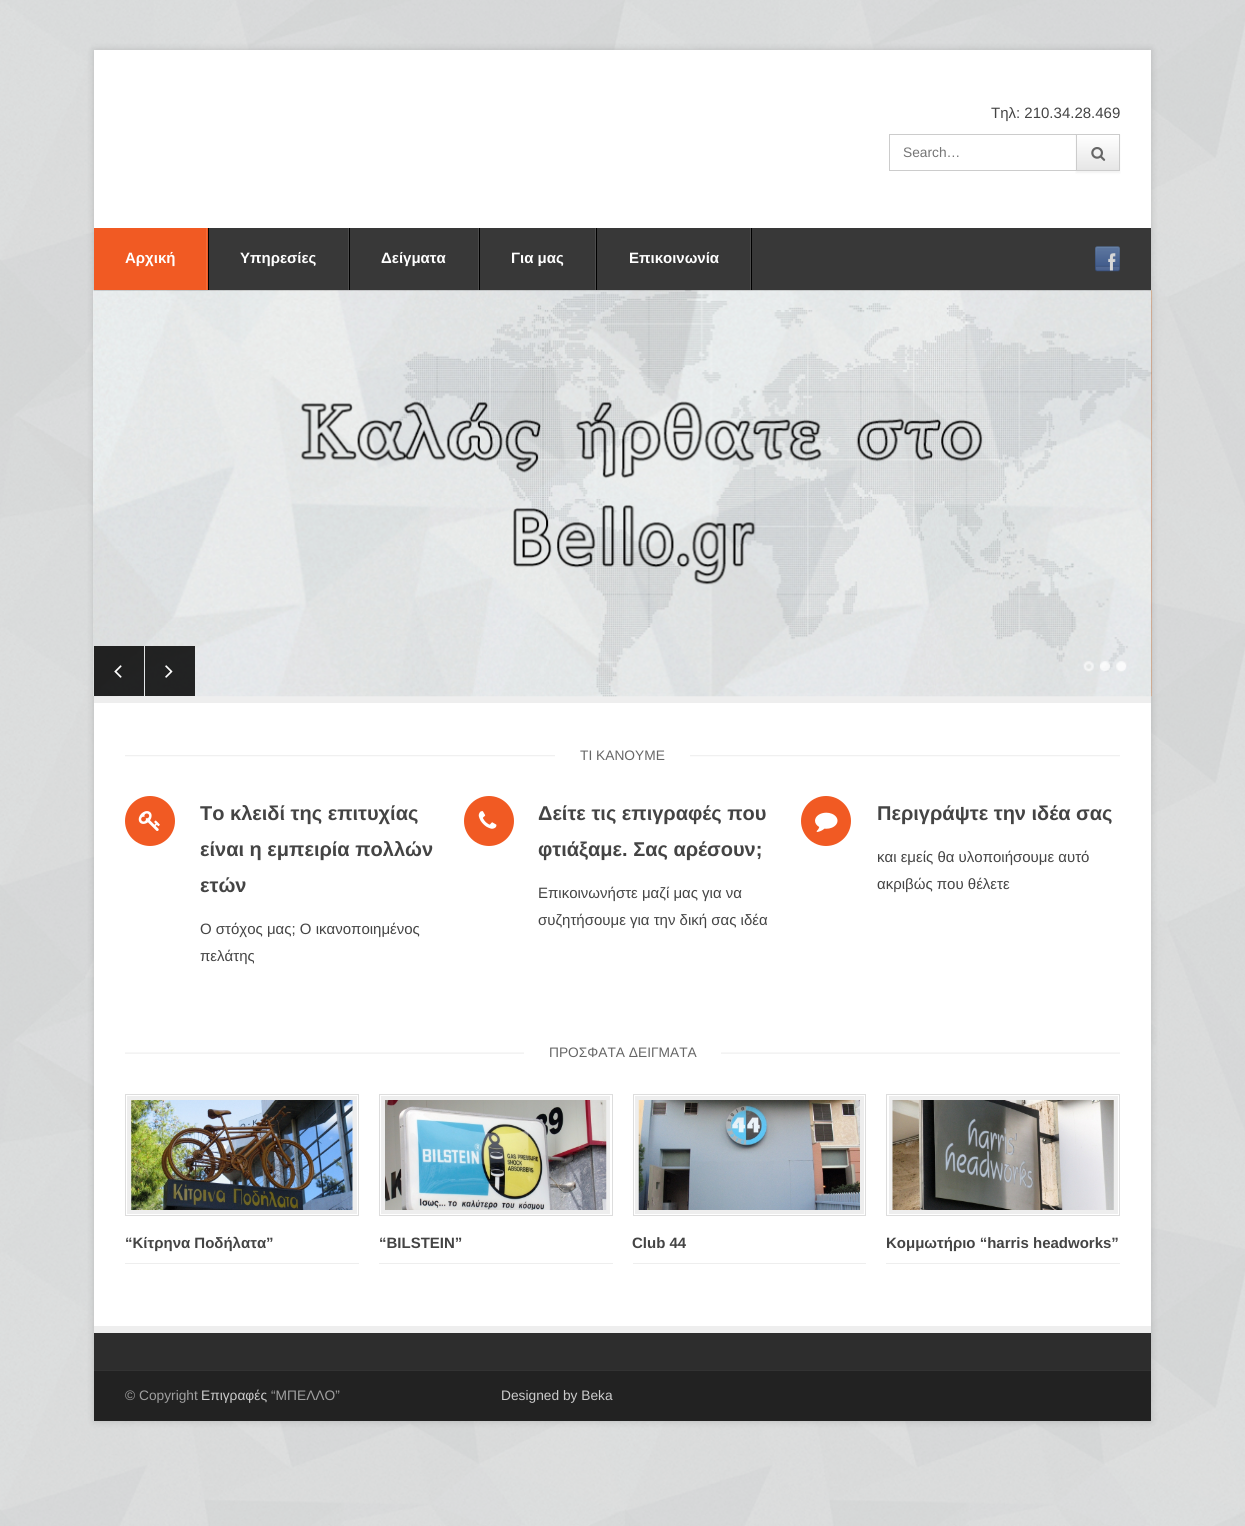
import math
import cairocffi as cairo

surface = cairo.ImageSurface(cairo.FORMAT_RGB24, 1245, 1526)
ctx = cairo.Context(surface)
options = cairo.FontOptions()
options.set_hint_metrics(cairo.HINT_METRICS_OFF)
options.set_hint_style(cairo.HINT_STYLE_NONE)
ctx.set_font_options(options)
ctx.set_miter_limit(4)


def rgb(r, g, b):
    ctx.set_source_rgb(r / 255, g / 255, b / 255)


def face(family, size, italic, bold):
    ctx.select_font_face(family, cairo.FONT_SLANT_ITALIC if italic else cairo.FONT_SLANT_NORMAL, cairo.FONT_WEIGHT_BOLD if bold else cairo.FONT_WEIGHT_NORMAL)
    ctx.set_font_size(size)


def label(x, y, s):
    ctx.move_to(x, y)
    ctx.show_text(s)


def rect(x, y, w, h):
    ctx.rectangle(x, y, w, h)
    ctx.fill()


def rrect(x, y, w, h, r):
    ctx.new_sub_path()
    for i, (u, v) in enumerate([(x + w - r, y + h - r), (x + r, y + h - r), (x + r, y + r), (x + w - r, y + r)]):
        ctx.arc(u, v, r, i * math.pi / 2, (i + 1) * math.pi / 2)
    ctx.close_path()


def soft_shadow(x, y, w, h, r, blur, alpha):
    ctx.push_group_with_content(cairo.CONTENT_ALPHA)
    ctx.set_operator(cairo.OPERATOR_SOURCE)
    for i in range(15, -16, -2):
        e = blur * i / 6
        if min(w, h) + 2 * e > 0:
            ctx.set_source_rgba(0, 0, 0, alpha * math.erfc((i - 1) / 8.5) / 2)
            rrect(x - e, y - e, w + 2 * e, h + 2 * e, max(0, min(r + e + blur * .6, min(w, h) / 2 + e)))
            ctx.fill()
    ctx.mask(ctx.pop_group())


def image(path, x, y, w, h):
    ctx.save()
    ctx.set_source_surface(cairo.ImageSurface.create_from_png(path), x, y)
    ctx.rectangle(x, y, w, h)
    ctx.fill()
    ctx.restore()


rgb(255, 255, 255)
ctx.paint()
image('image0.png', 0, 0, 1245, 1526)
rgb(0, 0, 0)
soft_shadow(94, 50, 1057, 1371, 0, 4, 0.15)
rgb(255, 255, 255)
rect(94, 50, 1057, 1276)
face('Liberation Sans', 15, 0, 0)
rgb(68, 68, 68)
label(991, 118, 'Τηλ: 210.34.28.469')
rgb(204, 204, 204)
rect(889, 134, 187, 1)
rect(889, 170, 187, 1)
rect(889, 134, 1, 37)
face('Liberation Sans', 13.75, 0, 0)
rgb(117, 117, 117)
label(903, 157, 'Search…')
rgb(0, 0, 0)
soft_shadow(1076, 135, 44, 38, 0, 1, 0.05)
gradient = cairo.LinearGradient(1098, 135, 1098, 170)
gradient.add_color_stop_rgba(0, 1, 1, 1, 1)
gradient.add_color_stop_rgba(1, 0.902, 0.902, 0.902, 1)
ctx.set_source(gradient)
rect(1077, 135, 42, 35)
ctx.rectangle(1076.5, 134.5, 43, 36)
rgb(204, 204, 204)
ctx.set_line_width(1)
ctx.stroke()
image('image1.png', 1091, 147, 15, 14)
rgb(56, 56, 56)
rect(94, 228, 1057, 63)
rgb(0, 0, 0)
rect(751, 228, 1, 62)
rgb(241, 90, 35)
rect(94, 228, 114, 62)
rgb(242, 107, 57)
rect(206, 228, 1, 62)
face('Liberation Sans', 15, 0, 1)
rgb(255, 255, 255)
label(125, 263, 'Αρχική')
rgb(76, 76, 76)
rect(348, 228, 1, 62)
rgb(0, 0, 0)
rect(208, 228, 1, 62)
rgb(255, 255, 255)
label(240, 263, 'Υπηρεσίες')
rgb(76, 76, 76)
rect(478, 228, 1, 62)
rgb(0, 0, 0)
rect(349, 228, 1, 62)
rgb(255, 255, 255)
label(381, 263, 'Δείγματα')
rgb(76, 76, 76)
rect(595, 228, 1, 62)
rgb(0, 0, 0)
rect(479, 228, 1, 62)
rgb(255, 255, 255)
label(511, 263, 'Για μας')
rgb(76, 76, 76)
rect(750, 228, 1, 62)
rgb(0, 0, 0)
rect(596, 228, 1, 62)
rgb(255, 255, 255)
label(629, 263, 'Επικοινωνία')
image('image2.png', 1095, 246, 25, 26)
rgb(238, 238, 238)
rect(94, 696, 1057, 7)
image('image3.png', 93, 290, 1, 407)
image('image4.png', 93, 290, 1059, 407)
image('image5.png', 1151, 290, 1, 407)
ctx.set_source_rgba(0, 0, 0, 0.85)
rect(94, 646, 50, 50)
image('image6.png', 114, 665, 8, 13)
rect(145, 646, 50, 50)
image('image7.png', 165, 665, 8, 13)
image('image8.png', 1083, 661, 11, 11)
image('image9.png', 1100, 661, 10, 11)
image('image10.png', 1116, 661, 11, 11)
image('image11.png', 125, 755, 995, 2)
rgb(255, 255, 255)
rect(555, 755, 135, 2)
face('Liberation Sans', 13.75, 0, 0)
rgb(102, 102, 102)
label(580, 760, 'ΤΙ ΚΑΝΟΥΜΕ')
rgb(241, 90, 35)
ctx.new_path()
ctx.arc(150, 821, 25, 0, 2 * math.pi)
ctx.fill()
image('image12.png', 138, 811, 22, 20)
face('Liberation Sans', 20, 0, 1)
rgb(68, 68, 68)
label(200, 820, 'Το κλειδί της επιτυχίας')
label(200, 856, 'είναι η εμπειρία πολλών')
label(200, 892, 'ετών')
face('Liberation Sans', 15, 0, 0)
label(200, 934, 'Ο στόχος μας; Ο ικανοποιημένος')
label(200, 961, 'πελάτης')
rgb(241, 90, 35)
ctx.new_path()
ctx.arc(489, 821, 25, 0, 2 * math.pi)
ctx.fill()
image('image13.png', 478, 811, 19, 18)
face('Liberation Sans', 20, 0, 1)
rgb(68, 68, 68)
label(538, 820, 'Δείτε τις επιγραφές που')
label(538, 856, 'φτιάξαμε. Σας αρέσουν;')
face('Liberation Sans', 15, 0, 0)
label(538, 898, 'Επικοινωνήστε μαζί μας για να')
label(538, 925, 'συζητήσουμε για την δική σας ιδέα')
rgb(241, 90, 35)
ctx.new_path()
ctx.arc(826, 821, 25, 0, 2 * math.pi)
ctx.fill()
image('image14.png', 815, 812, 23, 20)
face('Liberation Sans', 20, 0, 1)
rgb(68, 68, 68)
label(877, 820, 'Περιγράψτε την ιδέα σας')
face('Liberation Sans', 15, 0, 0)
label(877, 862, 'και εμείς θα υλοποιήσουμε αυτό')
label(877, 889, 'ακριβώς που θέλετε')
image('image15.png', 125, 1052, 995, 2)
rgb(255, 255, 255)
rect(524, 1052, 197, 2)
face('Liberation Sans', 13.75, 0, 0)
rgb(102, 102, 102)
label(549, 1057, 'ΠΡΟΣΦΑΤΑ ΔΕΙΓΜΑΤΑ')
ctx.rectangle(125.5, 1094.5, 233, 121)
rgb(221, 221, 221)
ctx.stroke()
rgb(238, 238, 238)
rect(127, 1096, 230, 118)
image('image16.png', 131, 1100, 222, 110)
rect(125, 1263, 234, 1)
face('Liberation Sans', 15, 0, 1)
rgb(68, 68, 68)
label(125, 1248, '“Κίτρηνα Ποδήλατα”')
ctx.rectangle(379.5, 1094.5, 233, 121)
rgb(221, 221, 221)
ctx.stroke()
rgb(238, 238, 238)
rect(381, 1096, 229, 118)
image('image17.png', 385, 1100, 222, 110)
rect(379, 1263, 234, 1)
rgb(68, 68, 68)
label(379, 1248, '“BILSTEIN”')
ctx.rectangle(633.5, 1094.5, 232, 121)
rgb(221, 221, 221)
ctx.stroke()
rgb(238, 238, 238)
rect(635, 1096, 229, 118)
image('image18.png', 638, 1100, 222, 110)
rect(633, 1263, 233, 1)
rgb(68, 68, 68)
label(632, 1248, 'Club 44')
ctx.rectangle(886.5, 1094.5, 233, 121)
rgb(221, 221, 221)
ctx.stroke()
rgb(238, 238, 238)
rect(889, 1096, 229, 118)
image('image19.png', 892, 1100, 222, 110)
rect(886, 1263, 234, 1)
rgb(68, 68, 68)
label(886, 1248, 'Κομμωτήριο “harris headworks”')
rgb(45, 45, 45)
rect(94, 1333, 1057, 37)
rgb(238, 238, 238)
rect(94, 1326, 1057, 7)
rgb(34, 34, 34)
rect(94, 1371, 1057, 50)
rgb(51, 51, 51)
rect(94, 1370, 1057, 1)
face('Liberation Sans', 13.75, 0, 0)
rgb(159, 159, 159)
label(125, 1400, '© Copyright')
rgb(204, 204, 204)
label(201, 1400, 'Επιγραφές')
rgb(159, 159, 159)
label(271, 1400, '“ΜΠΕΛΛΟ”')
rgb(204, 204, 204)
label(501, 1400, 'Designed by Beka')
surface.write_to_png('render.png')
